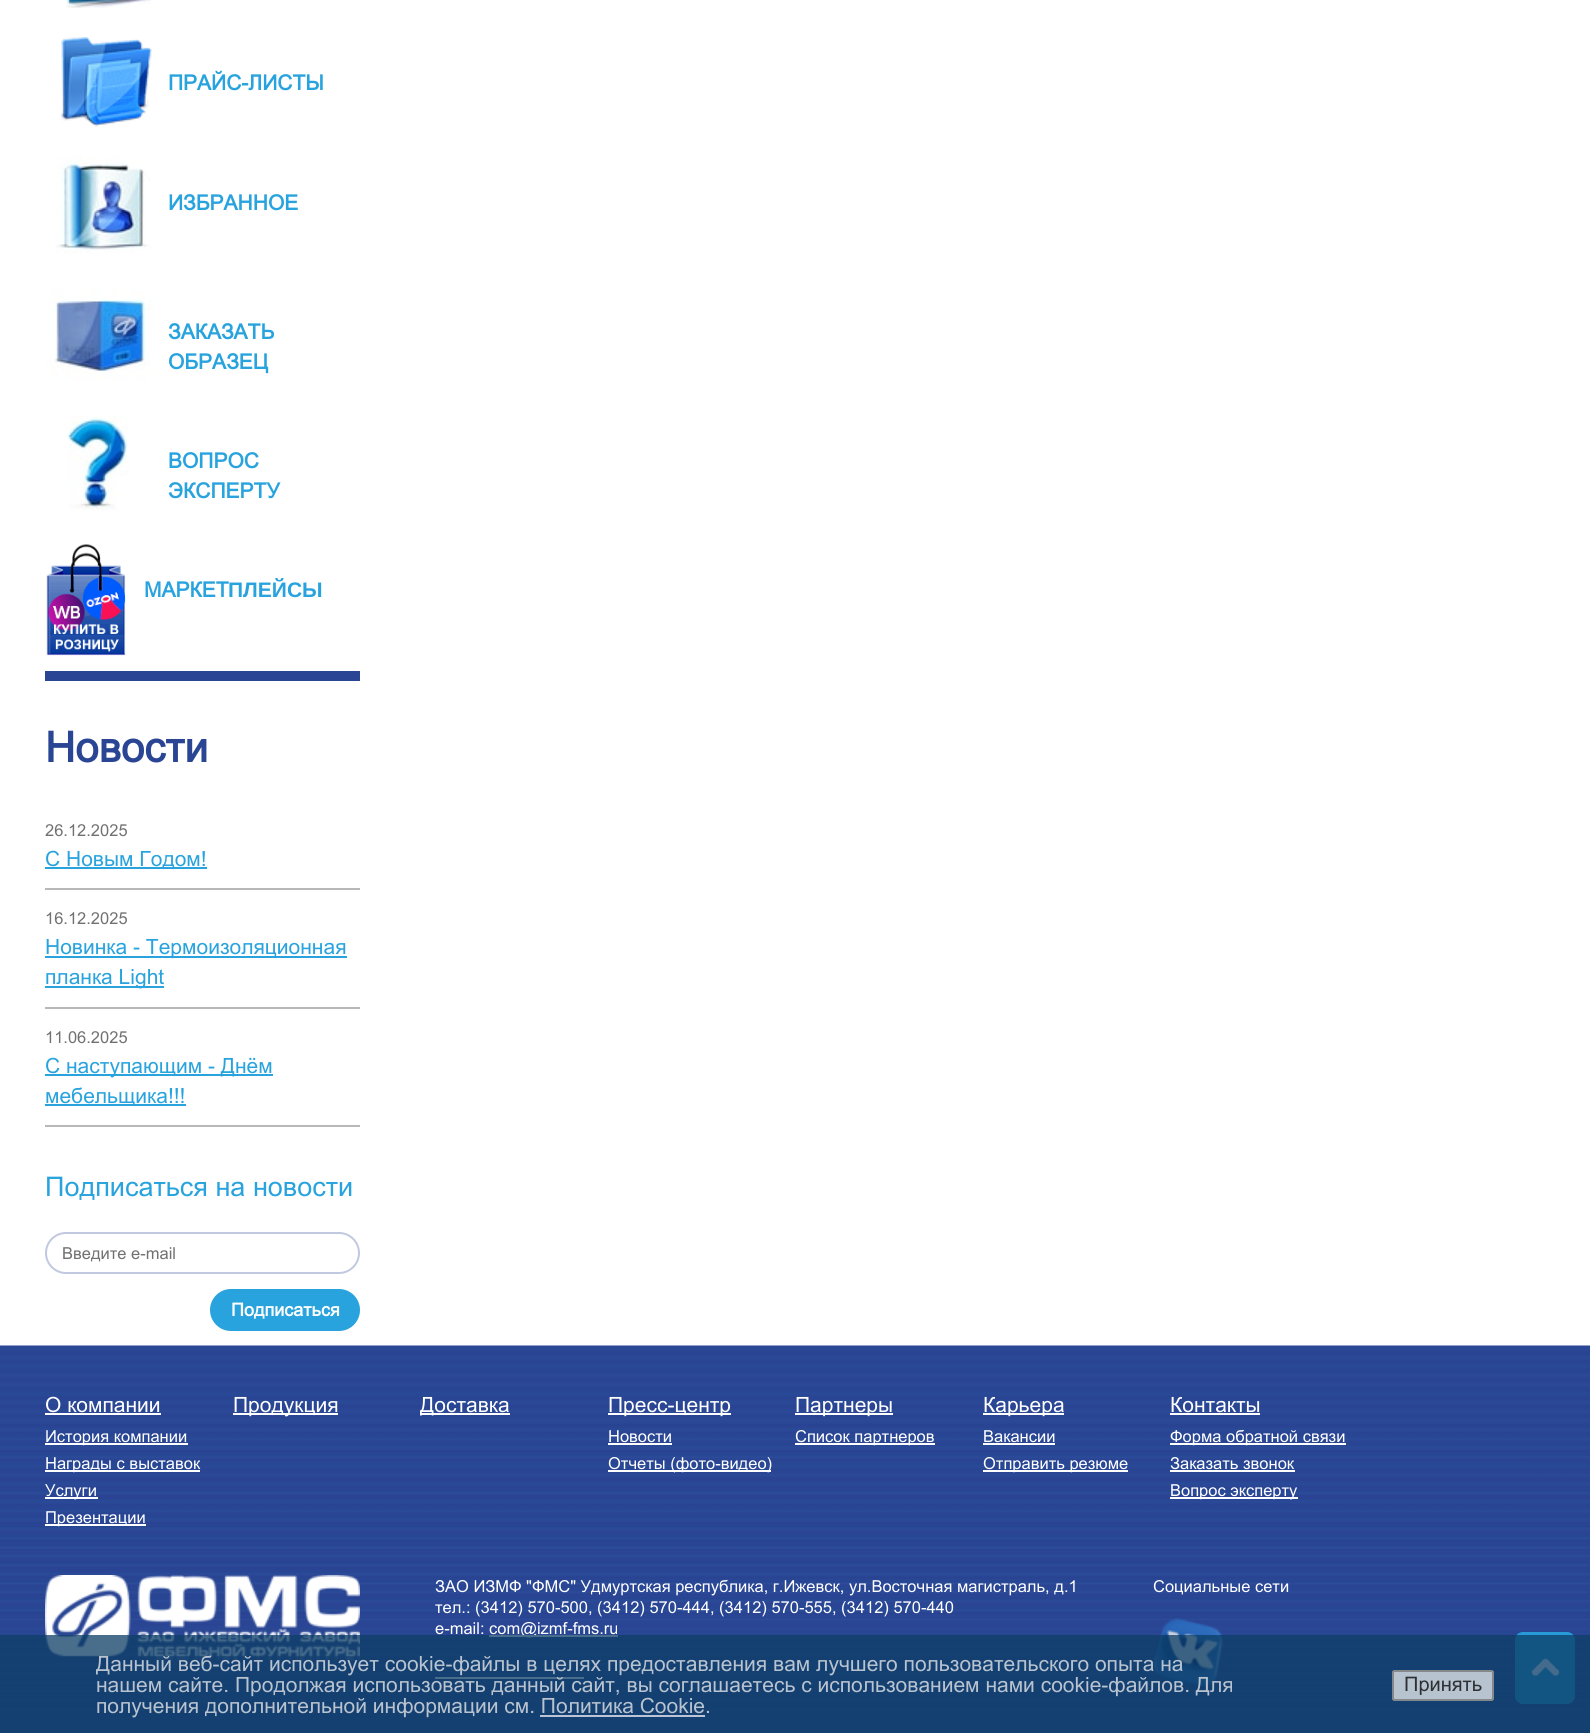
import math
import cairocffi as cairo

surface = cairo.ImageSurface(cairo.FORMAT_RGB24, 1590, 1733)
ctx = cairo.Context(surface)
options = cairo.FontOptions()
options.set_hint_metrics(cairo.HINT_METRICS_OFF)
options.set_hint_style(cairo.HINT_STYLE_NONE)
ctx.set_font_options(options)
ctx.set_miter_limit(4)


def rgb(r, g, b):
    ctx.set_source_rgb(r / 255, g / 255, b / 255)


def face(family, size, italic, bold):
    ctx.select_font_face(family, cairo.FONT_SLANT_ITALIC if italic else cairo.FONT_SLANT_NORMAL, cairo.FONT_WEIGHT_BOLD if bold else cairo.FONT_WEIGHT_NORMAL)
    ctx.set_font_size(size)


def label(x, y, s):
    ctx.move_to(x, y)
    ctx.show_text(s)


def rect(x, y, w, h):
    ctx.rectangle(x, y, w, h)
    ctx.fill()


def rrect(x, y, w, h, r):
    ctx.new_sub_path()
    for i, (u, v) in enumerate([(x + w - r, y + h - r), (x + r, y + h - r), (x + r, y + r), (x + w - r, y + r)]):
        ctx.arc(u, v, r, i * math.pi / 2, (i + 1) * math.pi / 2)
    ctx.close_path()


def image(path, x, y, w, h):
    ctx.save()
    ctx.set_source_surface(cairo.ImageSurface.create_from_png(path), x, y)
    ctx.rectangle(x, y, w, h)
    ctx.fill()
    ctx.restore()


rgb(255, 255, 255)
ctx.paint()
image('image0.png', 66, 0, 85, 8)
image('image1.png', 60, 37, 92, 90)
face('Arial', 21, 0, 1)
rgb(40, 163, 222)
label(168, 90, 'ПРАЙС-ЛИСТЫ')
image('image2.png', 56, 157, 95, 97)
label(168, 210, 'ИЗБРАННОЕ')
image('image3.png', 47, 287, 106, 93)
label(168, 339, 'ЗАКАЗАТЬ')
label(168, 369, 'ОБРАЗЕЦ')
image('image4.png', 67, 415, 62, 96)
label(168, 468, 'ВОПРОС')
label(168, 498, 'ЭКСПЕРТУ')
image('image5.png', 46, 544, 80, 112)
label(144, 597, 'МАРКЕТ')
face('Liberation Sans', 21, 0, 1)
label(228, 597, 'ПЛЕЙСЫ')
rgb(42, 69, 148)
rect(45, 671, 315, 10)
face('Arial', 42, 0, 1)
label(45, 762, 'Новости')
rgb(184, 184, 184)
rect(45, 888, 315, 2)
face('Arial', 16.5, 0, 0)
rgb(113, 113, 113)
label(45, 836, '26.12.2025')
rgb(40, 163, 222)
rect(45, 867, 162, 2)
face('Arial', 21, 0, 0)
label(45, 866, 'С Новым Годом!')
rgb(184, 184, 184)
rect(45, 1007, 315, 2)
face('Arial', 16.5, 0, 0)
rgb(113, 113, 113)
label(45, 924, '16.12.2025')
rgb(40, 163, 222)
rect(45, 956, 302, 2)
face('Arial', 21, 0, 0)
label(45, 954, 'Новинка - Термоизоляционная')
rect(45, 986, 119, 2)
label(45, 984, 'планка Light')
rgb(184, 184, 184)
rect(45, 1125, 315, 2)
face('Arial', 16.5, 0, 0)
rgb(113, 113, 113)
label(45, 1043, '11.06.2025')
rgb(40, 163, 222)
rect(45, 1074, 228, 2)
face('Arial', 21, 0, 0)
label(45, 1073, 'С наступающим - Днём')
rect(45, 1104, 141, 2)
label(45, 1103, 'мебельщика!!!')
face('Arial', 27, 0, 0)
label(45, 1196, 'Подписаться на новости')
rrect(46, 1233, 313, 40, 20)
rgb(193, 201, 224)
ctx.stroke()
face('Arial', 16.5, 0, 0)
rgb(113, 113, 113)
label(62, 1259, 'Введите e-mail')
rgb(40, 163, 222)
rrect(210, 1289, 150, 42, 21)
ctx.fill()
face('Arial', 18, 0, 1)
rgb(255, 255, 255)
label(231, 1316, 'Подписаться')
image('image6.png', 0, 1345, 1590, 388)
face('Arial', 21, 0, 0)
label(45, 1412, 'О компании')
rect(45, 1413, 116, 2)
rect(45, 1443, 143, 2)
face('Arial', 16.5, 0, 0)
label(45, 1442, 'История компании')
rect(45, 1470, 155, 2)
label(45, 1469, 'Награды с выставок')
rect(45, 1497, 53, 2)
label(45, 1496, 'Услуги')
rect(45, 1524, 101, 2)
label(45, 1523, 'Презентации')
rect(233, 1413, 105, 2)
face('Arial', 21, 0, 0)
label(233, 1412, 'Продукция')
rect(420, 1413, 90, 2)
label(420, 1412, 'Доставка')
rect(608, 1413, 123, 2)
label(608, 1412, 'Пресс-центр')
face('Arial', 16.5, 0, 0)
label(608, 1442, 'Новости')
rect(608, 1443, 64, 2)
rect(608, 1470, 163, 2)
label(608, 1469, 'Отчеты (фото-видео)')
rect(795, 1413, 98, 2)
face('Arial', 21, 0, 0)
label(795, 1412, 'Партнеры')
rect(795, 1443, 140, 2)
face('Arial', 16.5, 0, 0)
label(795, 1442, 'Список партнеров')
rect(983, 1413, 81, 2)
face('Arial', 21, 0, 0)
label(983, 1412, 'Карьера')
face('Arial', 16.5, 0, 0)
label(983, 1442, 'Вакансии')
rect(983, 1443, 72, 2)
rect(983, 1470, 145, 2)
label(983, 1469, 'Отправить резюме')
face('Arial', 21, 0, 0)
label(1170, 1412, 'Контакты')
rect(1170, 1413, 90, 2)
rect(1170, 1443, 176, 2)
face('Arial', 16.5, 0, 0)
label(1170, 1442, 'Форма обратной связи')
label(1170, 1469, 'Заказать звонок')
rect(1170, 1470, 125, 2)
rect(1170, 1497, 128, 2)
label(1170, 1496, 'Вопрос эксперту')
image('image7.png', 45, 1575, 315, 86)
label(435, 1592, 'ЗАО ИЗМФ "ФМС" Удмуртская республика, г.Ижевск, ул.Восточная магистраль, д.1')
label(435, 1613, 'тел.: (3412) 570-500, (3412) 570-444, (3412) 570-555, (3412) 570-440')
label(435, 1634, 'e-mail:')
rect(489, 1635, 129, 2)
label(489, 1634, 'com@izmf-fms.ru')
rect(435, 1677, 149, 2)
label(1153, 1592, 'Социальные сети')
image('image8.png', 1153, 1618, 70, 70)
ctx.set_source_rgba(0.157, 0.639, 0.871, 0.9)
rrect(1515, 1632, 60, 72, 8)
ctx.fill()
image('image9.png', 1532, 1658, 27, 18)
ctx.set_source_rgba(0.051, 0.243, 0.4, 0.75)
rect(0, 1635, 1590, 98)
face('Arial', 21, 0, 0)
rgb(184, 195, 207)
label(96, 1671, 'Данный веб-сайт использует cookie-файлы в целях предоставления вам лучшего пользовательского опыта на')
label(96, 1692, 'нашем сайте. Продолжая использовать данный сайт, вы соглашаетесь с использованием нами cookie-файлов. Для')
label(96, 1713, 'получения дополнительной информации см. Политика Cookie.')
rgb(189, 196, 216)
rect(540, 1715, 165, 2)
rgb(184, 195, 208)
rrect(1392, 1670, 102, 31, 3)
ctx.fill()
rrect(1393, 1671, 100, 29, 2)
ctx.set_source_rgba(0.463, 0.463, 0.463, 0.75)
ctx.stroke()
face('Arial', 20, 0, 0)
rgb(46, 49, 52)
label(1404, 1691, 'Принять')
surface.write_to_png('render.png')
